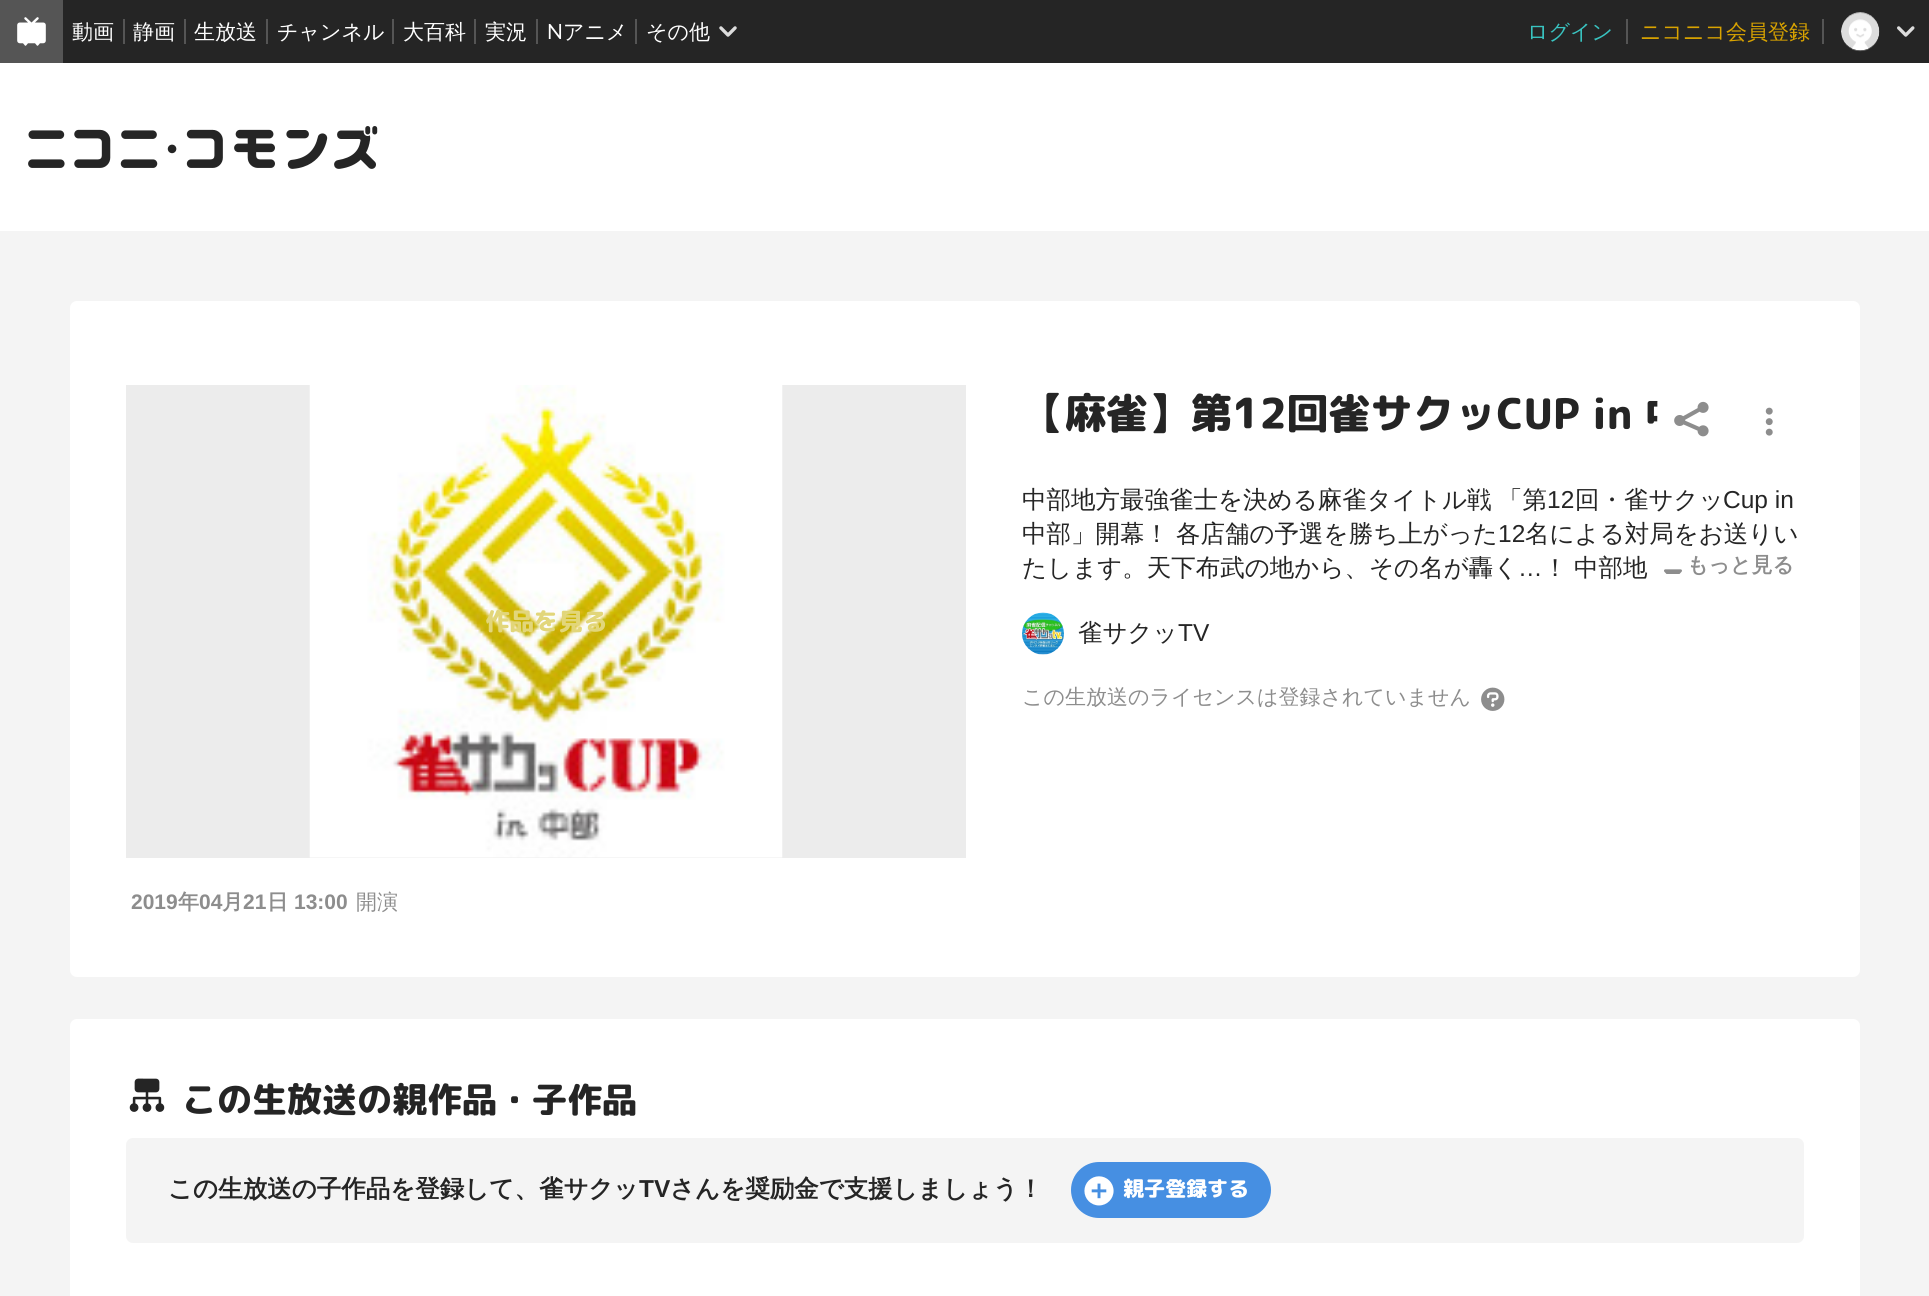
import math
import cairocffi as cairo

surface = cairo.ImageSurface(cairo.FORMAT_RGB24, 1929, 1296)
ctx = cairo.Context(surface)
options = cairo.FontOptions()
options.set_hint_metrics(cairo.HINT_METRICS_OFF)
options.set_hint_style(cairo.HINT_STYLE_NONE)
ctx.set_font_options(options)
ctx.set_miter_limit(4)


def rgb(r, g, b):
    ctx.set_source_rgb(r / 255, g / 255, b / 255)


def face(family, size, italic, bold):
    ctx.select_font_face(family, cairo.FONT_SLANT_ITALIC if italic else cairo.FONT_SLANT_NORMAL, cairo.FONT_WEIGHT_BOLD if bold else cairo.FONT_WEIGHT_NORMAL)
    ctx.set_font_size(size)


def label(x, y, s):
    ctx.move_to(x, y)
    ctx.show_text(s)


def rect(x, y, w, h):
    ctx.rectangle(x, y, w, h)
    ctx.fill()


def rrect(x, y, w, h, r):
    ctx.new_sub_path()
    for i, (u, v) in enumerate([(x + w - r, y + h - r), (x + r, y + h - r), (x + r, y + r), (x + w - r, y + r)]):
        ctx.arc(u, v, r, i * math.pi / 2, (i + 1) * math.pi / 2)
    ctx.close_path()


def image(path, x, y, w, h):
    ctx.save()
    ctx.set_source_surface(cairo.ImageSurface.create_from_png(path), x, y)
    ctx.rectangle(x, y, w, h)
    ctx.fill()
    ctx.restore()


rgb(244, 244, 244)
ctx.paint()
rgb(37, 37, 37)
rect(63, 0, 1866, 63)
rgb(85, 85, 85)
rect(0, 0, 63, 63)
image('image0.png', 17, 17, 29, 29)
face('WenQuanYi Zen Hei Medium', 21, 0, 0)
rgb(255, 255, 255)
label(72, 39, '動画')
rgb(85, 85, 85)
rect(123, 19, 2, 25)
rgb(255, 255, 255)
label(133, 39, '静画')
rgb(85, 85, 85)
rect(184, 19, 2, 25)
rgb(255, 255, 255)
label(194, 39, '生放送')
rgb(85, 85, 85)
rect(266, 19, 2, 25)
rgb(255, 255, 255)
label(277, 39, 'チャンネル')
rgb(85, 85, 85)
rect(392, 19, 2, 25)
rgb(255, 255, 255)
label(403, 39, '大百科')
rgb(85, 85, 85)
rect(474, 19, 2, 25)
rgb(255, 255, 255)
label(485, 39, '実況')
rgb(85, 85, 85)
rect(536, 19, 2, 25)
face('Lato', 21, 0, 0)
rgb(255, 255, 255)
label(547, 39, 'N')
face('WenQuanYi Zen Hei Medium', 21, 0, 0)
label(563, 39, 'アニメ')
rgb(85, 85, 85)
rect(635, 19, 2, 25)
rgb(255, 255, 255)
label(646, 39, 'その他')
image('image1.png', 719, 26, 18, 11)
rgb(57, 196, 193)
label(1527, 39, 'ログイン')
rgb(85, 85, 85)
rect(1626, 19, 2, 25)
rgb(217, 163, 0)
label(1640, 39, 'ニコニコ会員登録')
rgb(85, 85, 85)
rect(1822, 19, 2, 25)
image('image2.png', 1841, 12, 39, 40)
image('image3.png', 1897, 26, 18, 11)
rgb(255, 255, 255)
rect(0, 63, 1929, 168)
image('image4.png', 28, 126, 350, 43)
rrect(70, 301, 1790, 676, 7)
ctx.fill()
rgb(236, 236, 236)
rect(126, 385, 840, 473)
image('image5.png', 309, 385, 474, 473)
face('Rounded Mplus 1c ExtraBold', 24.5, 0, 0)
rgb(226, 214, 122)
ctx.save()
ctx.translate(485, 630)
ctx.rotate(0.1 * math.pi / 180)
label(0, 0, '作品を見る')
ctx.restore()
ctx.save()
ctx.new_path()
ctx.move_to(1022, 384.5)
ctx.line_to(1657.5, 385.5)
ctx.line_to(1657, 455.5)
ctx.line_to(1022, 454.5)
ctx.close_path()
ctx.clip()
face('Rounded Mplus 1c ExtraBold', 42, 0, 0)
rgb(37, 37, 37)
ctx.save()
ctx.translate(1022, 428)
ctx.rotate(0.1 * math.pi / 180)
label(0, 0, '【麻雀】第12回雀サクッCUP in 中部')
ctx.restore()
ctx.restore()
image('image6.png', 1674, 401, 35, 36)
image('image7.png', 1765, 407, 8, 29)
face('WenQuanYi Zen Hei Medium', 24.5, 0, 0)
rgb(37, 37, 37)
label(1022, 508, '中部地方最強雀士を決める麻雀タイトル戦')
label(1498, 508, '「第')
face('Liberation Sans', 24.5, 0, 0)
label(1547, 508, '12')
face('WenQuanYi Zen Hei Medium', 24.5, 0, 0)
label(1575, 508, '回・雀サクッ')
face('Liberation Sans', 24.5, 0, 0)
label(1723, 508, 'Cup in')
face('WenQuanYi Zen Hei Medium', 24.5, 0, 0)
label(1022, 542, '中部」開幕！')
label(1176, 542, '各店舗の予選を勝ち上がった')
face('Liberation Sans', 24.5, 0, 0)
label(1498, 542, '12')
face('WenQuanYi Zen Hei Medium', 24.5, 0, 0)
label(1525, 542, '名による対局をお送りい')
label(1022, 576, 'たします。天下布武の地から、その名が轟く')
face('Liberation Sans', 24.5, 0, 0)
label(1518, 576, '…')
face('WenQuanYi Zen Hei Medium', 24.5, 0, 0)
label(1543, 576, '！')
label(1574, 576, '中部地')
image('image8.png', 1664, 569, 18, 5)
face('WenQuanYi Zen Hei', 21, 0, 1)
rgb(141, 141, 141)
label(1687, 572, 'もっと見る')
image('image9.png', 1022, 612, 42, 43)
face('WenQuanYi Zen Hei Medium', 24.5, 0, 0)
rgb(37, 37, 37)
label(1078, 641, '雀サクッ')
face('Liberation Sans', 24.5, 0, 0)
label(1178, 641, 'TV')
face('WenQuanYi Zen Hei Medium', 21, 0, 0)
rgb(141, 141, 141)
label(1022, 704, 'この生放送のライセンスは登録されていません')
image('image10.png', 1481, 687, 24, 24)
face('Liberation Sans', 21, 0, 1)
label(131, 909, '2019')
face('WenQuanYi Zen Hei', 21, 0, 1)
label(178, 909, '年')
face('Liberation Sans', 21, 0, 1)
label(199, 909, '04')
face('WenQuanYi Zen Hei', 21, 0, 1)
label(222, 909, '月')
face('Liberation Sans', 21, 0, 1)
label(243, 909, '21')
face('WenQuanYi Zen Hei', 21, 0, 1)
label(267, 909, '日')
face('Liberation Sans', 21, 0, 1)
label(294, 909, '13:00')
face('WenQuanYi Zen Hei Medium', 21, 0, 0)
label(356, 909, '開演')
rgb(255, 255, 255)
rrect(70, 1019, 1790, 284, 7)
ctx.fill()
image('image11.png', 129, 1078, 36, 34)
face('Rounded Mplus 1c ExtraBold', 35, 0, 0)
rgb(37, 37, 37)
ctx.save()
ctx.translate(182, 1112)
ctx.rotate(0.1 * math.pi / 180)
label(0, 0, 'この')
ctx.restore()
ctx.save()
ctx.translate(252, 1112)
ctx.rotate(0.1 * math.pi / 180)
label(0, 0, '生放送')
ctx.restore()
ctx.save()
ctx.translate(357, 1112)
ctx.rotate(0.1 * math.pi / 180)
label(0, 0, 'の親作品・子作品')
ctx.restore()
rgb(244, 244, 244)
rrect(126, 1138, 1678, 105, 7)
ctx.fill()
face('WenQuanYi Zen Hei', 24.5, 0, 1)
rgb(37, 37, 37)
label(168, 1197, 'この生放送の子作品を登録して、雀サクッ')
face('Liberation Sans', 24.5, 0, 1)
label(639, 1197, 'TV')
face('WenQuanYi Zen Hei', 24.5, 0, 1)
label(670, 1197, 'さんを奨励金で支援しましょう！')
rgb(70, 143, 226)
rrect(1071, 1162, 200, 56, 28)
ctx.fill()
image('image12.png', 1084, 1176, 30, 30)
face('Rounded Mplus 1c ExtraBold', 21, 0, 0)
rgb(255, 255, 255)
ctx.save()
ctx.translate(1123, 1196)
ctx.rotate(0.1 * math.pi / 180)
label(0, 0, '親子登録する')
ctx.restore()
surface.write_to_png('render.png')
